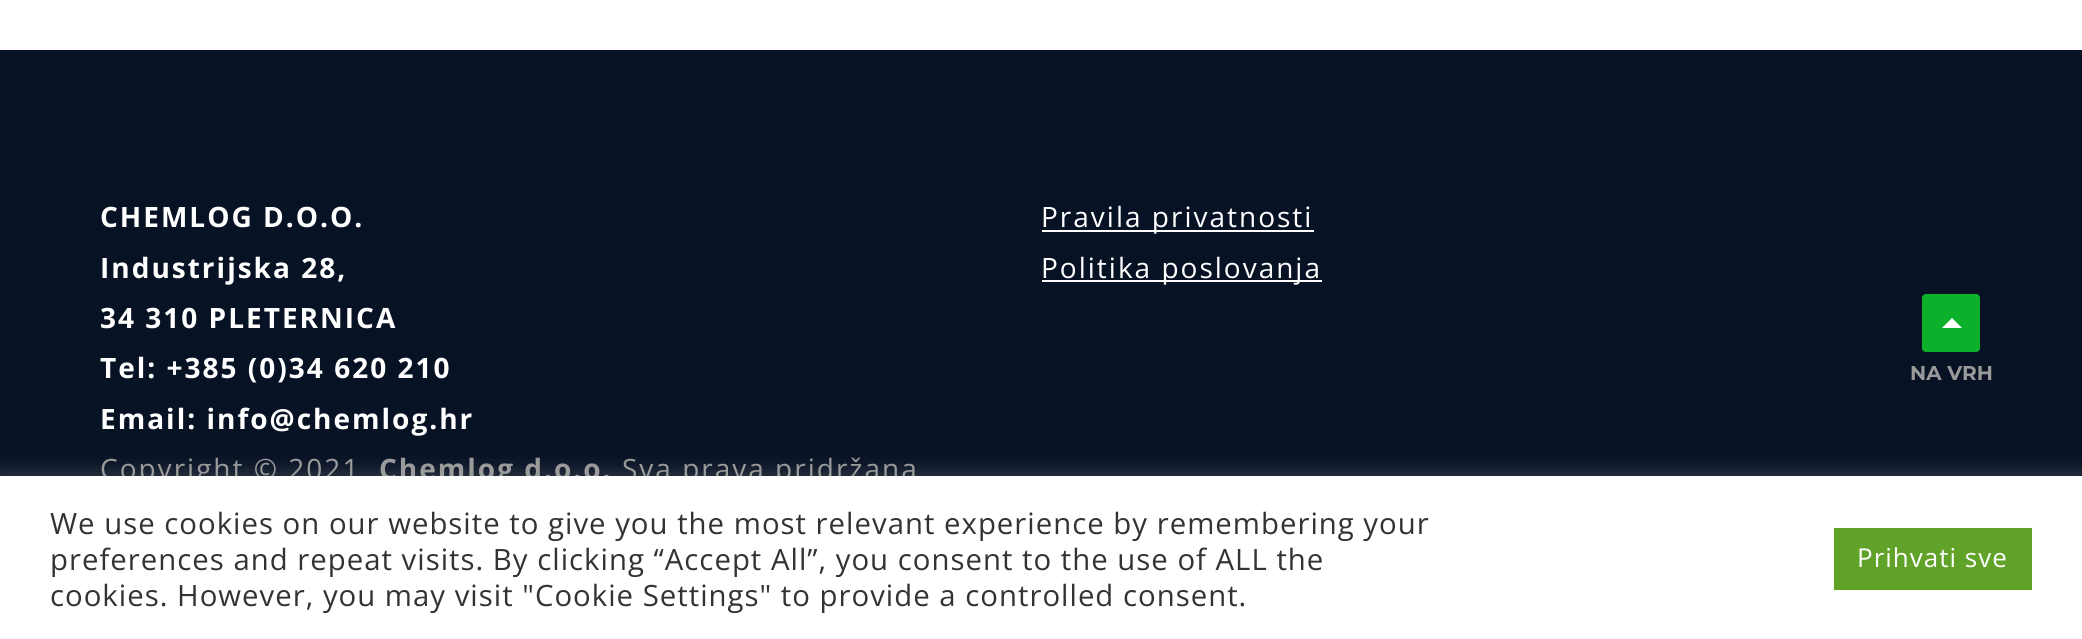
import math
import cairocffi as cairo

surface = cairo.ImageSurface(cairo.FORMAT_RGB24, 2082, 639)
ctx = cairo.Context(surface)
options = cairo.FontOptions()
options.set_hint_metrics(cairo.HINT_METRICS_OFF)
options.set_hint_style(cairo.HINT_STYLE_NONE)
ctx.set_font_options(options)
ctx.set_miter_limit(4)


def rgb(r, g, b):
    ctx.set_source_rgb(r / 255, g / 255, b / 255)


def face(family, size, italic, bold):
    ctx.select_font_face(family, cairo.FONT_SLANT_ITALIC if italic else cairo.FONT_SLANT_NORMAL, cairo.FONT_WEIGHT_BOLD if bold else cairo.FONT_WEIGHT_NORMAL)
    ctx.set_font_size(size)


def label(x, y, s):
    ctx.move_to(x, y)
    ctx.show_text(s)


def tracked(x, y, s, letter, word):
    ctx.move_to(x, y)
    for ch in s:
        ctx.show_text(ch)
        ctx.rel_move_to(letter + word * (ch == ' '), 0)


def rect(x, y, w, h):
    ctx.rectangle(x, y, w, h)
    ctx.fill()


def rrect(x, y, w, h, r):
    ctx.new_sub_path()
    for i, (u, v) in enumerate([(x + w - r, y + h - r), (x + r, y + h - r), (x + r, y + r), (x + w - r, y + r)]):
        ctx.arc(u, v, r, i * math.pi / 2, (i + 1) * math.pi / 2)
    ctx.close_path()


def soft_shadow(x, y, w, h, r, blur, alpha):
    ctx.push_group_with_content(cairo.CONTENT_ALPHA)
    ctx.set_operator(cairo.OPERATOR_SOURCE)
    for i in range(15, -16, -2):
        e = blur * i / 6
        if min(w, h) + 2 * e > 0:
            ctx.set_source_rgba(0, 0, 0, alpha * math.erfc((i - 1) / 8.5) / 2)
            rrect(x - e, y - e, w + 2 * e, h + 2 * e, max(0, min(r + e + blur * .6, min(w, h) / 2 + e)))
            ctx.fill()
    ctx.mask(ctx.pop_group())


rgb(255, 255, 255)
ctx.paint()
rgb(8, 18, 37)
rect(0, 50, 2082, 426)
face('Open Sans', 28, 0, 1)
rgb(255, 255, 255)
tracked(100, 227, 'CHEMLOG D.O.O.', 2, 0)
tracked(100, 278, 'Industrijska 28,', 2, 0)
tracked(100, 328, '34 310 PLETERNICA', 2, 0)
tracked(100, 378, 'Tel: +385 (0)34 620 210', 2, 0)
tracked(100, 429, 'Email: info@chemlog.hr', 2, 0)
face('Open Sans', 28, 0, 0)
rgb(153, 153, 153)
tracked(100, 479, 'Copyright © 2021', 2, 0)
face('Open Sans', 28, 0, 1)
tracked(379, 479, 'Chemlog d.o.o.', 2, 0)
face('Open Sans', 28, 0, 0)
tracked(622, 479, 'Sva prava pridržana', 2, 0)
rgb(255, 255, 255)
rect(1042, 230, 272, 2)
tracked(1041, 227, 'Pravila privatnosti', 2, 0)
rect(1042, 280, 280, 2)
tracked(1041, 278, 'Politika poslovanja', 2, 0)
rgb(13, 176, 43)
rrect(1922, 294, 58, 58, 4)
ctx.fill()
rgb(255, 255, 255)
ctx.new_path()
ctx.move_to(1962, 328)
ctx.line_to(1942, 328)
ctx.line_to(1952, 318)
ctx.close_path()
ctx.fill()
face('Montserrat', 20, 0, 1)
rgb(153, 153, 153)
label(1910, 380, 'NA VRH')
rgb(172, 171, 171)
soft_shadow(0, 474, 2082, 164, 0, 10, 0.3)
rgb(255, 255, 255)
rect(0, 476, 2082, 163)
face('Open Sans', 29.35, 0, 0)
rgb(51, 51, 51)
tracked(50, 534, 'We use cookies on our website to give you the most relevant experience by remembering your', 1, 0)
tracked(50, 570, 'preferences and repeat visits. By clicking “Accept All”, you consent to the use of ALL the', 1, 0)
tracked(50, 606, 'cookies. However, you may visit "Cookie Settings" to provide a controlled consent.', 1, 0)
rgb(97, 162, 41)
rect(1834, 528, 198, 62)
face('Open Sans', 26, 0, 0)
rgb(255, 255, 255)
tracked(1857, 567, 'Prihvati sve', 1, 0)
surface.write_to_png('render.png')
